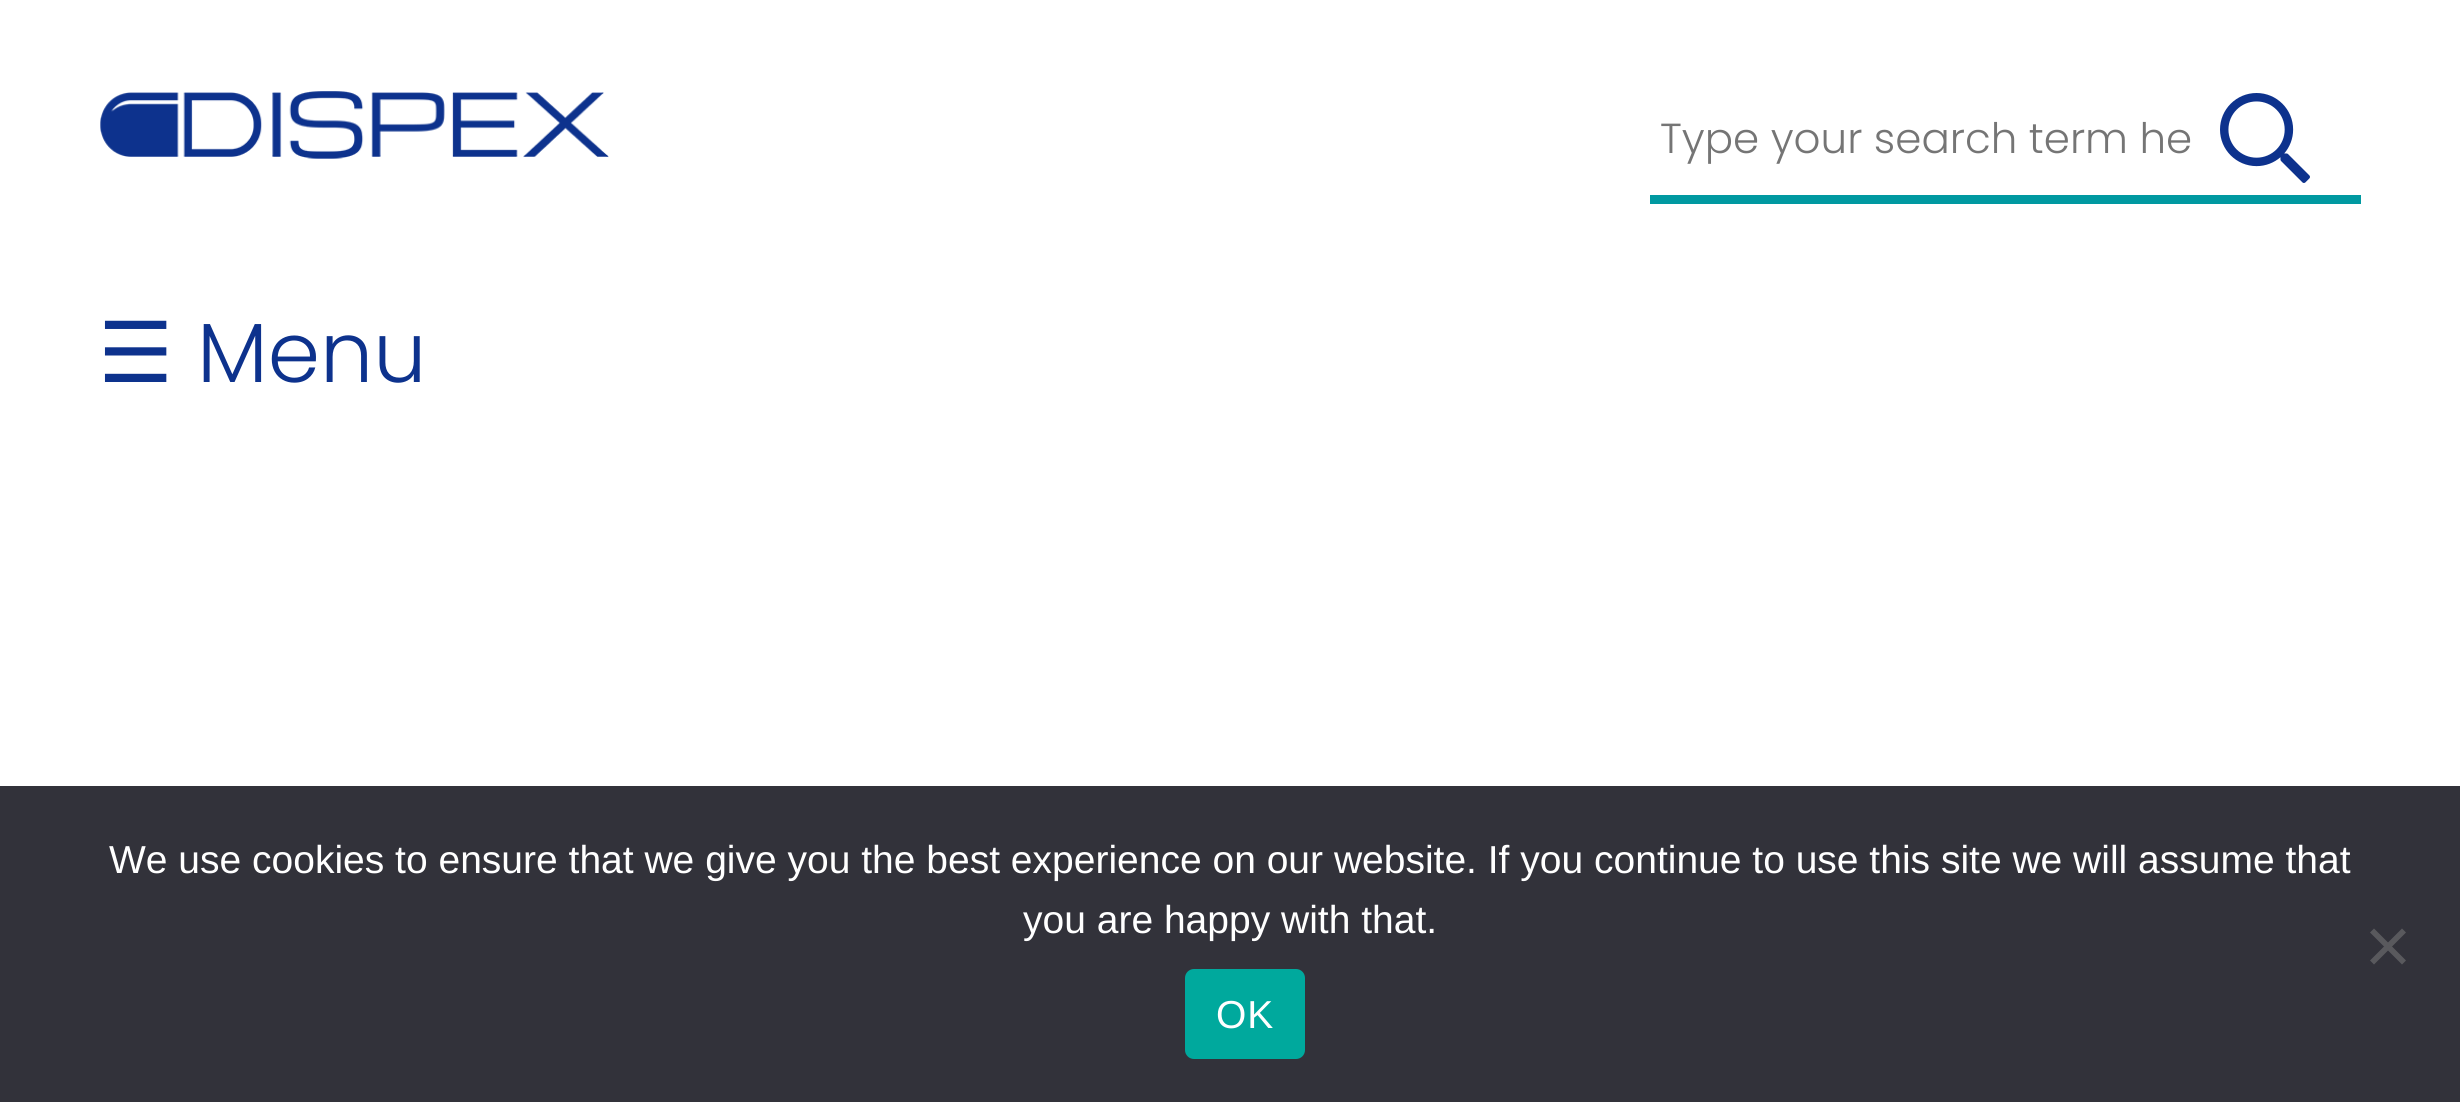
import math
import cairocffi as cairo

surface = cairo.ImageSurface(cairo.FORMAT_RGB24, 2460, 1102)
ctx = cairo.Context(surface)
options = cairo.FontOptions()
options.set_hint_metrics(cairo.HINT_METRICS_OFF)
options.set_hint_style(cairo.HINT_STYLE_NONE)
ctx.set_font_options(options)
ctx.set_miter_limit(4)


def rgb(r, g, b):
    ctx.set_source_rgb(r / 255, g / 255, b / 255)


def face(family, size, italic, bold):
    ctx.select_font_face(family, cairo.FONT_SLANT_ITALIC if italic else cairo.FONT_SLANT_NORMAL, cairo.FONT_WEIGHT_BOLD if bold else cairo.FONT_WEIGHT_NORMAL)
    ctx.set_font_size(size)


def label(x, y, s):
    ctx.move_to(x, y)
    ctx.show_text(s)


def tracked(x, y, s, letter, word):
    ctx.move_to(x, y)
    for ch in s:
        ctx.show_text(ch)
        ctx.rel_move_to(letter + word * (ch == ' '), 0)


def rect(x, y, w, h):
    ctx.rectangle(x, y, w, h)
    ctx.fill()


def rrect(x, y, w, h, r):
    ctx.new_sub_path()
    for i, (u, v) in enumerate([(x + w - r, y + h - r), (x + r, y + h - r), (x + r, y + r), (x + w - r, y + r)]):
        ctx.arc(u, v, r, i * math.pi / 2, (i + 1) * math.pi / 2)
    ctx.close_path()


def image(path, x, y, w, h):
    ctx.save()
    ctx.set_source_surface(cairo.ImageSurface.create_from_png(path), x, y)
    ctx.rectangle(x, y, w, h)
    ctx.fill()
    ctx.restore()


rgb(255, 255, 255)
ctx.paint()
image('image0.png', 100, 91, 509, 68)
rgb(0, 153, 161)
rect(1650, 195, 711, 9)
face('Poppins Light', 42, 0, 0)
rgb(117, 117, 117)
label(1660, 153, 'Type your search term he')
image('image1.png', 2220, 93, 90, 90)
face('DejaVu Sans', 84, 0, 0)
rgb(13, 50, 141)
label(98, 382, '☰')
face('Poppins Light', 84, 0, 0)
label(197, 382, 'Menu')
rgb(50, 50, 58)
rect(0, 786, 2460, 316)
face('Liberation Sans', 39, 0, 0)
rgb(255, 255, 255)
label(109, 873, 'We use cookies to ensure that we give you the best experience on our website. If you continue to use this site we will assume that')
label(1023, 933, 'you are happy with that.')
rgb(89, 89, 93)
ctx.new_path()
ctx.move_to(2402, 928.5)
ctx.line_to(2406, 932.5)
ctx.line_to(2374, 964.5)
ctx.line_to(2370, 960.5)
ctx.close_path()
ctx.fill()
ctx.new_path()
ctx.move_to(2370, 932.5)
ctx.line_to(2374, 928.5)
ctx.line_to(2406, 960.5)
ctx.line_to(2402, 964.5)
ctx.close_path()
ctx.fill()
rgb(0, 169, 157)
rrect(1185, 969, 120, 90, 9)
ctx.fill()
rgb(255, 255, 255)
tracked(1216, 1028, 'OK', 1, 0)
surface.write_to_png('render.png')
